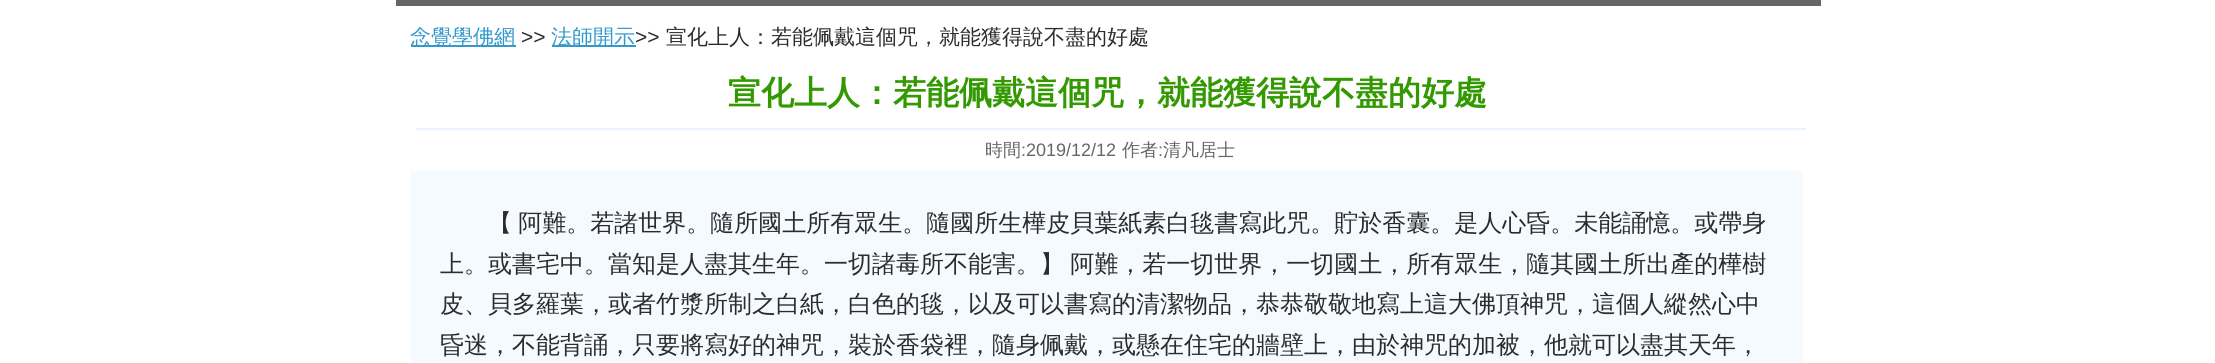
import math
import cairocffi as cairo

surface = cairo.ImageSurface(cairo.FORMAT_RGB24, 2215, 363)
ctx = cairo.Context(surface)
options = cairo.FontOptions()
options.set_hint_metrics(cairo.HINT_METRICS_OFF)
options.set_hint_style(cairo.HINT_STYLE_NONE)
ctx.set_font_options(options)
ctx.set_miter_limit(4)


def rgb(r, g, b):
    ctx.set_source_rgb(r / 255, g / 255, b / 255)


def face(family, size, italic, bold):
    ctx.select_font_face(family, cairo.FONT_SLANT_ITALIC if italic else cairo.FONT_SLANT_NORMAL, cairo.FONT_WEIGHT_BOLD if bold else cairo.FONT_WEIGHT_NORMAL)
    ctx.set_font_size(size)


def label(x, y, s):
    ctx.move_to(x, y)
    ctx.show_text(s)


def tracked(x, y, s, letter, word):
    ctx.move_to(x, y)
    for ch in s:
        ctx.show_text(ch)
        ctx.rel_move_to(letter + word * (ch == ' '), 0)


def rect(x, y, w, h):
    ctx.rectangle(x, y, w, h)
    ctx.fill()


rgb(255, 255, 255)
ctx.paint()
rgb(102, 102, 102)
rect(396, 0, 1425, 6)
rgb(51, 153, 204)
rect(411, 45, 105, 2)
face('WenQuanYi Zen Hei Medium', 21, 0, 0)
label(410, 44, '念覺學佛網')
face('Liberation Sans', 21, 0, 0)
rgb(43, 43, 43)
label(521, 44, '>>')
rgb(51, 153, 204)
rect(552, 45, 84, 2)
face('WenQuanYi Zen Hei Medium', 21, 0, 0)
label(551, 44, '法師開示')
face('Liberation Sans', 21, 0, 0)
rgb(43, 43, 43)
label(635, 44, '>>')
face('WenQuanYi Zen Hei Medium', 21, 0, 0)
label(666, 44, '宣化上人：若能佩戴這個咒，就能獲得說不盡的好處')
face('WenQuanYi Zen Hei', 33, 0, 1)
rgb(51, 153, 0)
label(728, 104, '宣化上人：若能佩戴這個咒，就能獲得說不盡的好處')
rgb(232, 243, 255)
rect(416, 128, 1390, 2)
face('WenQuanYi Zen Hei Medium', 18, 0, 0)
rgb(102, 102, 102)
label(985, 156, '時間')
face('Liberation Sans', 18, 0, 0)
label(1021, 156, ':2019/12/12')
face('WenQuanYi Zen Hei Medium', 18, 0, 0)
label(1122, 156, '作者')
face('Liberation Sans', 18, 0, 0)
label(1158, 156, ':')
face('WenQuanYi Zen Hei Medium', 18, 0, 0)
label(1163, 156, '清凡居士')
rgb(245, 250, 255)
rect(411, 171, 1392, 192)
face('WenQuanYi Zen Hei Medium', 24, 0, 0)
rgb(43, 43, 43)
tracked(488, 231, '【 阿難。若諸世界。隨所國土所有眾生。隨國所生樺皮貝葉紙素白毯書寫此咒。貯於香囊。是人心昏。未能誦憶。或帶身', 0, -1)
tracked(440, 272, '上。或書宅中。當知是人盡其生年。一切諸毒所不能害。】 阿難，若一切世界，一切國土，所有眾生，隨其國土所出產的樺樹', 0, -1)
label(440, 312, '皮、貝多羅葉，或者竹漿所制之白紙，白色的毯，以及可以書寫的清潔物品，恭恭敬敬地寫上這大佛頂神咒，這個人縱然心中')
label(440, 353, '昏迷，不能背誦，只要將寫好的神咒，裝於香袋裡，隨身佩戴，或懸在住宅的牆壁上，由於神咒的加被，他就可以盡其天年，')
surface.write_to_png('render.png')
